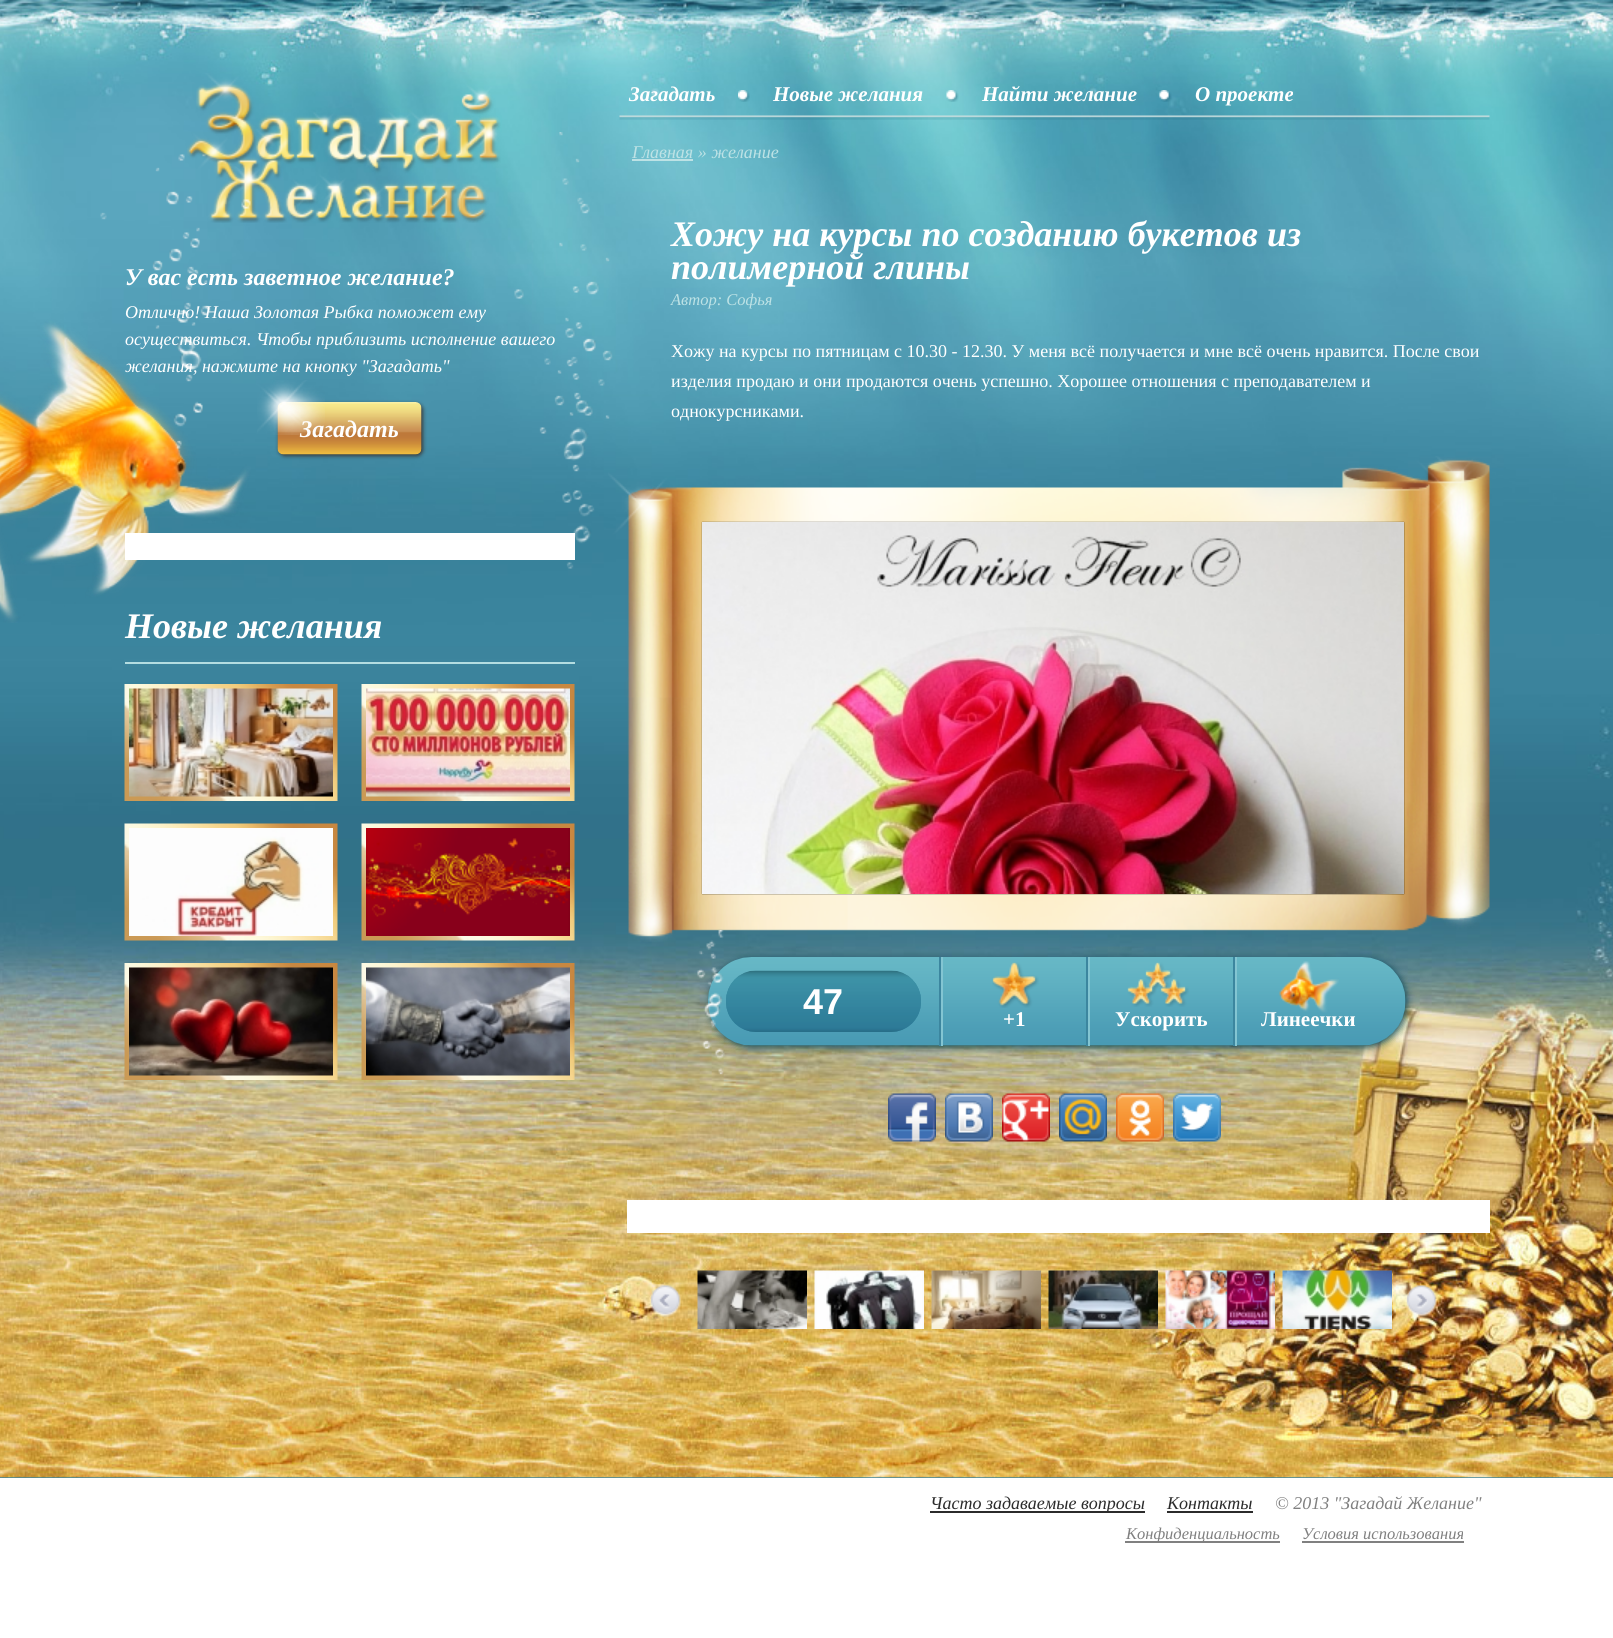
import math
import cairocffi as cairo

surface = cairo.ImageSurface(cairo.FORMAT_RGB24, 1613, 1638)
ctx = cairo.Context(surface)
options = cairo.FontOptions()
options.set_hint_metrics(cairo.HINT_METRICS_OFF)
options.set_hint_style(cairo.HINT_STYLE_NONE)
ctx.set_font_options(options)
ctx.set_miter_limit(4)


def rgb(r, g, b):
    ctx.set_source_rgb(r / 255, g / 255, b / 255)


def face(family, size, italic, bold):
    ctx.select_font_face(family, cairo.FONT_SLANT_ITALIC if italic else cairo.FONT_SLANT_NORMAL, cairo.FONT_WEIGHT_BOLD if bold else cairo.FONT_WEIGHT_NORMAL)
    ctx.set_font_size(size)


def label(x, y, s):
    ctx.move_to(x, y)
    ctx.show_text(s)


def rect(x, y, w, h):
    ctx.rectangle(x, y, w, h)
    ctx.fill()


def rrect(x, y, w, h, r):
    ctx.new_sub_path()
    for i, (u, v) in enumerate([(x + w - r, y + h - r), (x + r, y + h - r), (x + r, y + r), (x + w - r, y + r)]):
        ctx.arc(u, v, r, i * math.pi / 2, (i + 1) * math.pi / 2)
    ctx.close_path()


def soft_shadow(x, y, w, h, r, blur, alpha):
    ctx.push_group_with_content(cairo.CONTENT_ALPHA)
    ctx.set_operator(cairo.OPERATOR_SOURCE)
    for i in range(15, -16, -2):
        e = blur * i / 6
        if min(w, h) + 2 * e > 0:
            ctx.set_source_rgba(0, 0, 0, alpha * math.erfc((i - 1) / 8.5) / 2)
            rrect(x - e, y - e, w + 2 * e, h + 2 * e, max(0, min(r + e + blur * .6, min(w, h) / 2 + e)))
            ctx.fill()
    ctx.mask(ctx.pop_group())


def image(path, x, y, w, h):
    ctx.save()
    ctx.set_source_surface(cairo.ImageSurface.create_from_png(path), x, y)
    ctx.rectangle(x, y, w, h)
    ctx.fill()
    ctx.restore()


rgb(255, 255, 255)
ctx.paint()
rgb(60, 134, 159)
rect(0, 1477, 1613, 1)
image('image0.png', 0, 634, 1613, 844)
image('image1.png', 0, 0, 1613, 634)
image('image2.png', 187, 73, 314, 150)
image('image3.png', 0, 154, 251, 469)
image('image23.png', 608, 456, 882, 486)
image('image4.png', 514, 132, 99, 437)
face('Liberation Serif', 24, 1, 1)
rgb(255, 255, 255)
label(125, 285, 'У вас есть заветное желание?')
face('Liberation Serif', 18, 1, 0)
label(125, 318, 'Отлично! Наша Золотая Рыбка поможет ему')
label(125, 345, 'осуществиться. Чтобы приблизить исполнение вашего')
label(125, 372, 'желания, нажмите на кнопку "Загадать"')
rgb(58, 58, 58)
soft_shadow(279, 404, 144, 52, 6, 2, 1)
image('image5.png', 277, 402, 145, 53)
face('Liberation Serif', 24, 1, 1)
rgb(255, 255, 255)
label(300, 437, 'Загадать')
image('image6.png', 257, 380, 68, 55)
rect(125, 533, 450, 27)
rgb(180, 221, 225)
rect(125, 662, 450, 2)
face('Liberation Serif', 36, 1, 1)
rgb(255, 255, 255)
label(125, 638, 'Новые желания')
image('image7.png', 124, 684, 214, 117)
image('image8.png', 129, 688, 204, 109)
image('image9.png', 361, 684, 214, 117)
image('image10.png', 366, 688, 204, 109)
image('image11.png', 124, 823, 214, 118)
image('image12.png', 129, 828, 204, 108)
image('image13.png', 361, 823, 214, 118)
image('image14.png', 366, 828, 204, 108)
image('image15.png', 124, 963, 214, 117)
image('image16.png', 129, 967, 204, 109)
image('image17.png', 361, 963, 214, 117)
image('image18.png', 366, 967, 204, 109)
image('image19.png', 619, 115, 871, 5)
image('image20.png', 738, 90, 12, 12)
face('Liberation Serif', 21, 1, 1)
label(629, 101, 'Загадать')
image('image21.png', 946, 90, 13, 12)
label(773, 101, 'Новые желания')
image('image22.png', 1159, 90, 13, 12)
label(982, 101, 'Найти желание')
label(1195, 101, 'О проекте')
face('Liberation Serif', 18, 1, 0)
rgb(189, 226, 229)
label(632, 158, 'Главная » желание')
rect(632, 159, 61, 2)
face('Liberation Serif', 36, 1, 1)
rgb(255, 255, 255)
label(671, 246, 'Хожу на курсы по созданию букетов из')
label(671, 279, 'полимерной глины')
face('Liberation Serif', 16.5, 1, 0)
rgb(189, 226, 229)
label(671, 305, 'Автор: Софья')
face('Liberation Serif', 18, 0, 0)
rgb(255, 255, 255)
label(671, 357, 'Хожу на курсы по пятницам с 10.30 - 12.30. У меня всё получается и мне всё очень нравится. После свои')
label(671, 387, 'изделия продаю и они продаются очень успешно. Хорошее отношения с преподавателем и')
label(671, 417, 'однокурсниками.')
image('image24.png', 702, 522, 702, 372)
rgb(5, 69, 90)
soft_shadow(710, 959, 697, 88, 44, 4, 1)
image('image26.png', 708, 957, 698, 89)
image('image25.png', 697, 930, 28, 145)
rgb(60, 134, 159)
rect(939, 957, 2, 89)
rgb(54, 136, 161)
rrect(726, 971, 195, 61, 30)
ctx.fill()
image('image27.png', 726, 970, 195, 62)
face('Liberation Sans', 36, 0, 1)
rgb(255, 255, 255)
label(803, 1014, '47')
rgb(60, 134, 159)
rect(1086, 957, 2, 89)
rgb(131, 197, 210)
rect(941, 957, 2, 89)
image('image28.png', 992, 962, 47, 46)
face('Liberation Serif', 21, 0, 1)
rgb(255, 255, 255)
label(1003, 1026, '+1')
rgb(60, 134, 159)
rect(1233, 957, 2, 89)
rgb(131, 197, 210)
rect(1088, 957, 2, 89)
image('image29.png', 1127, 962, 62, 45)
rgb(255, 255, 255)
label(1115, 1026, 'Ускорить')
rgb(131, 197, 210)
rect(1235, 957, 2, 89)
image('image30.png', 1279, 961, 60, 52)
rgb(255, 255, 255)
label(1261, 1026, 'Линеечки')
image('image31.png', 888, 1093, 48, 49)
image('image32.png', 945, 1093, 48, 49)
image('image33.png', 1002, 1093, 48, 49)
image('image34.png', 1059, 1093, 48, 49)
image('image35.png', 1116, 1093, 48, 49)
image('image36.png', 1173, 1093, 48, 49)
rect(627, 1200, 863, 33)
image('image37.png', 649, 1285, 32, 32)
image('image38.png', 697, 1270, 110, 59)
image('image39.png', 814, 1270, 110, 59)
image('image40.png', 931, 1270, 110, 59)
image('image41.png', 1048, 1270, 110, 59)
image('image42.png', 1165, 1270, 110, 59)
image('image43.png', 1282, 1270, 110, 59)
image('image44.png', 1405, 1285, 32, 32)
rgb(43, 43, 43)
rect(930, 1511, 215, 2)
face('Liberation Serif', 18, 1, 0)
label(930, 1509, 'Часто задаваемые вопросы')
label(1167, 1509, 'Контакты')
rect(1167, 1511, 86, 2)
rgb(128, 128, 128)
label(1275, 1509, '© 2013 "Загадай Желание"')
rect(1125, 1541, 155, 2)
face('Liberation Serif', 16.5, 1, 0)
label(1126, 1539, 'Конфиденциальность')
label(1302, 1539, 'Условия использования')
rect(1302, 1541, 162, 2)
surface.write_to_png('render.png')
